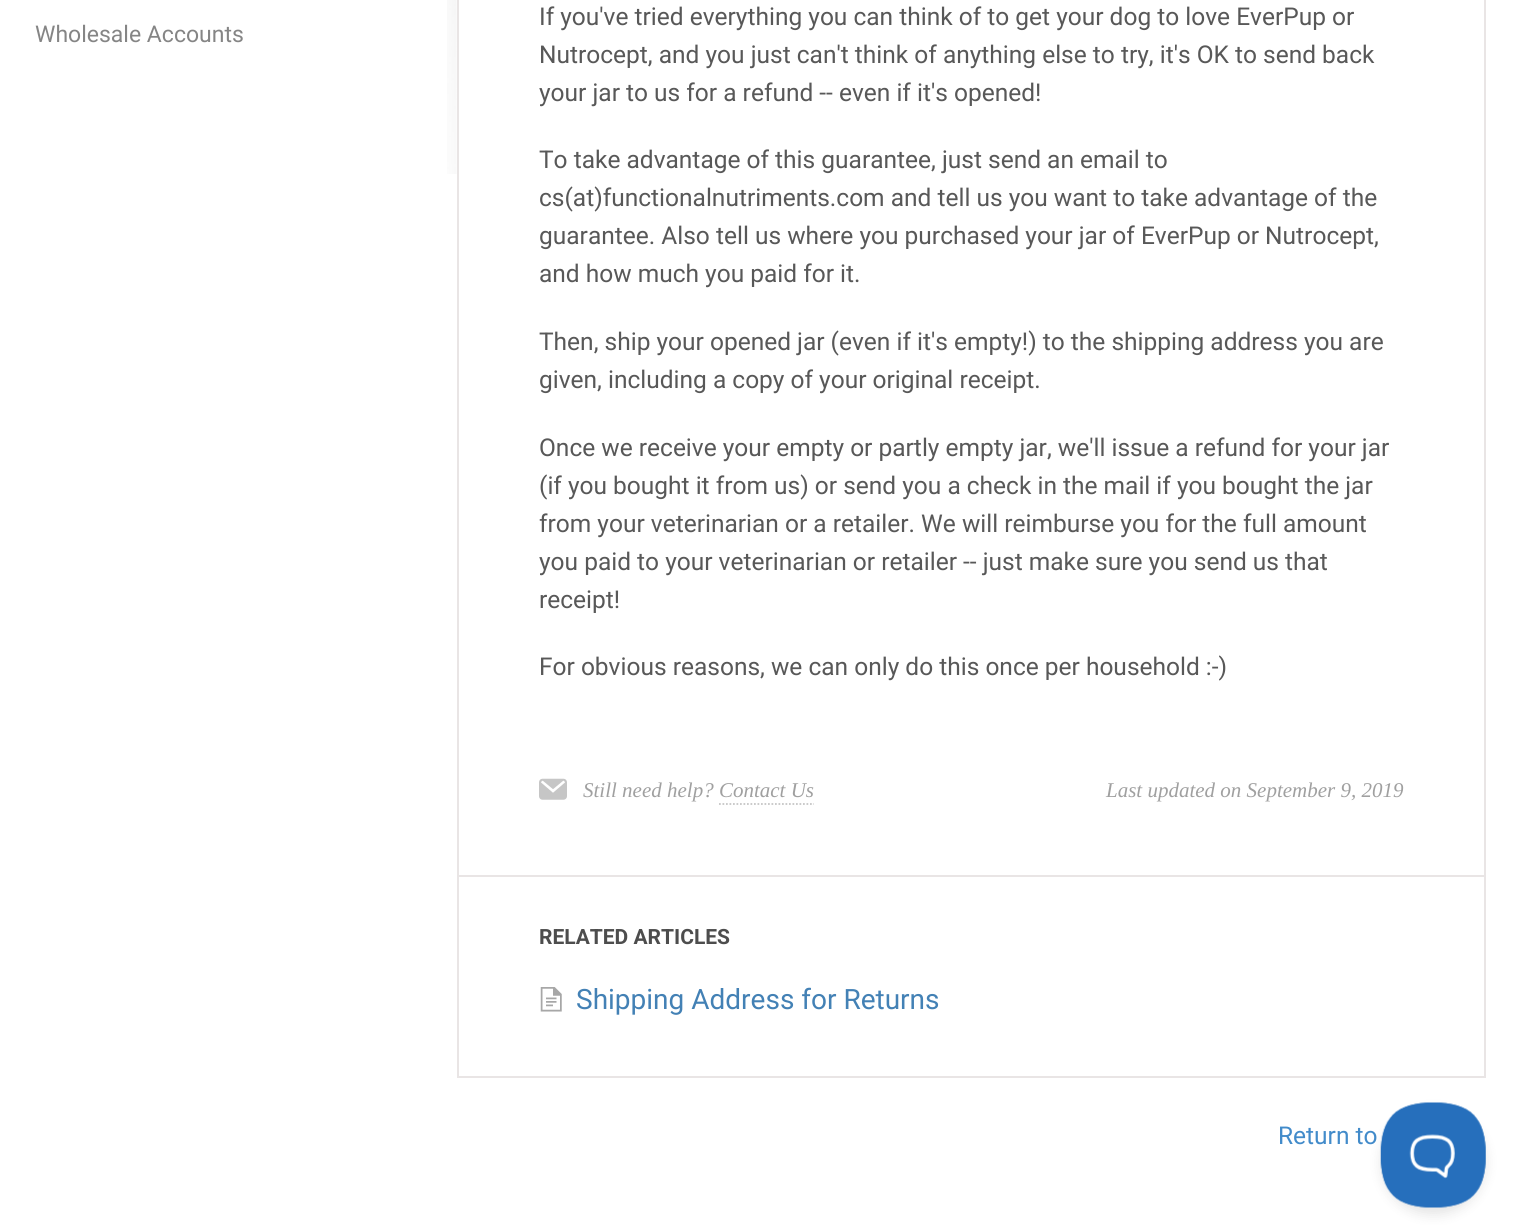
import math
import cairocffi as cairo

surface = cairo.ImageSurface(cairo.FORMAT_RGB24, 1520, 1225)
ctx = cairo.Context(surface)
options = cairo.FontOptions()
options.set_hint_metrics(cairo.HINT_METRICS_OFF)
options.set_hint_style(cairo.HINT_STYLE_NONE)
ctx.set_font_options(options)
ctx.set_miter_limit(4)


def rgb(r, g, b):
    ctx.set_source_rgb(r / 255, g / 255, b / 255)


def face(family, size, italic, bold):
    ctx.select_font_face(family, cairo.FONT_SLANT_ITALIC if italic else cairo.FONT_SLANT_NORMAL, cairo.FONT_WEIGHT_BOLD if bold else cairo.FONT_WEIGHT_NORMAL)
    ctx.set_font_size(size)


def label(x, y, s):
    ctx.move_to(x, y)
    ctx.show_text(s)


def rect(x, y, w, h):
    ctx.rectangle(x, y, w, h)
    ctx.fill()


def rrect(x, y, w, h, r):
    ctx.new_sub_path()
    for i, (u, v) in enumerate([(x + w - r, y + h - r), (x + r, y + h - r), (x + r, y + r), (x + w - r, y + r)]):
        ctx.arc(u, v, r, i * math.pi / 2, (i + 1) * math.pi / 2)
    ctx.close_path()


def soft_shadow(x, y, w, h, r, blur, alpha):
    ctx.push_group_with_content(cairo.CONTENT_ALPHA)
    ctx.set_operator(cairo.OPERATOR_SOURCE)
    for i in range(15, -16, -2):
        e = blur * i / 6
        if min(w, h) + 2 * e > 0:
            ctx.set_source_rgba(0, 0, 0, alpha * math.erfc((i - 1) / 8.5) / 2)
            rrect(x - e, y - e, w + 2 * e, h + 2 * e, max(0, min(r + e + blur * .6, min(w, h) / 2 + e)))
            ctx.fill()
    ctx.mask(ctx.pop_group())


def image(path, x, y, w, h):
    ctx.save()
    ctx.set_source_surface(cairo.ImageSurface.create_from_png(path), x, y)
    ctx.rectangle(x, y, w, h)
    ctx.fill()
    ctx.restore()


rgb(255, 255, 255)
ctx.paint()
face('Roboto', 23, 0, 0)
rgb(133, 133, 133)
label(35, 42, 'Wholesale Accounts')
image('image0.png', 447, 0, 10, 174)
ctx.rectangle(458, -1, 1027, 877)
rgb(233, 229, 229)
ctx.stroke()
face('Roboto', 24.5, 0, 0)
rgb(88, 88, 88)
label(539, 25, 'If you\'ve tried everything you can think of to get your dog to love EverPup or')
label(539, 63, 'Nutrocept, and you just can\'t think of anything else to try, it\'s OK to send back')
label(539, 101, 'your jar to us for a refund -- even if it\'s opened!')
label(539, 168, 'To take advantage of this guarantee, just send an email to')
label(539, 206, 'cs(at)functionalnutriments.com and tell us you want to take advantage of the')
label(539, 244, 'guarantee. Also tell us where you purchased your jar of EverPup or Nutrocept,')
label(539, 282, 'and how much you paid for it.')
label(539, 350, 'Then, ship your opened jar (even if it\'s empty!) to the shipping address you are')
label(539, 388, 'given, including a copy of your original receipt.')
label(539, 456, 'Once we receive your empty or partly empty jar, we\'ll issue a refund for your jar')
label(539, 494, '(if you bought it from us) or send you a check in the mail if you bought the jar')
label(539, 532, 'from your veterinarian or a retailer. We will reimburse you for the full amount')
label(539, 570, 'you paid to your veterinarian or retailer -- just make sure you send us that')
label(539, 608, 'receipt!')
label(539, 675, 'For obvious reasons, we can only do this once per household :-)')
image('image1.png', 539, 778, 28, 22)
face('Liberation Serif', 21, 1, 0)
rgb(160, 160, 160)
label(583, 797, 'Still need help? Contact Us')
ctx.new_path()
ctx.move_to(719, 804)
ctx.line_to(814, 804)
rgb(197, 197, 197)
ctx.set_line_width(1.8)
ctx.set_dash([1.75, 1.75])
ctx.stroke()
rgb(160, 160, 160)
label(1106, 797, 'Last updated on September 9, 2019')
rgb(233, 229, 229)
rect(1484, 877, 2, 201)
rect(457, 1076, 1029, 2)
rect(457, 877, 2, 201)
face('Roboto', 21, 0, 1)
rgb(77, 77, 77)
label(539, 944, 'RELATED ARTICLES')
image('image2.png', 540, 987, 22, 25)
face('Roboto', 28, 0, 0)
rgb(67, 129, 181)
label(576, 1009, 'Shipping Address for Returns')
face('Roboto', 24.5, 0, 0)
rgb(66, 139, 202)
label(1278, 1144, 'Return to')
rgb(0, 0, 0)
soft_shadow(1381, 1110, 105, 105, 52.5, 6, 0.1)
image('image3.png', 1380, 1102, 106, 106)
surface.write_to_png('render.png')
